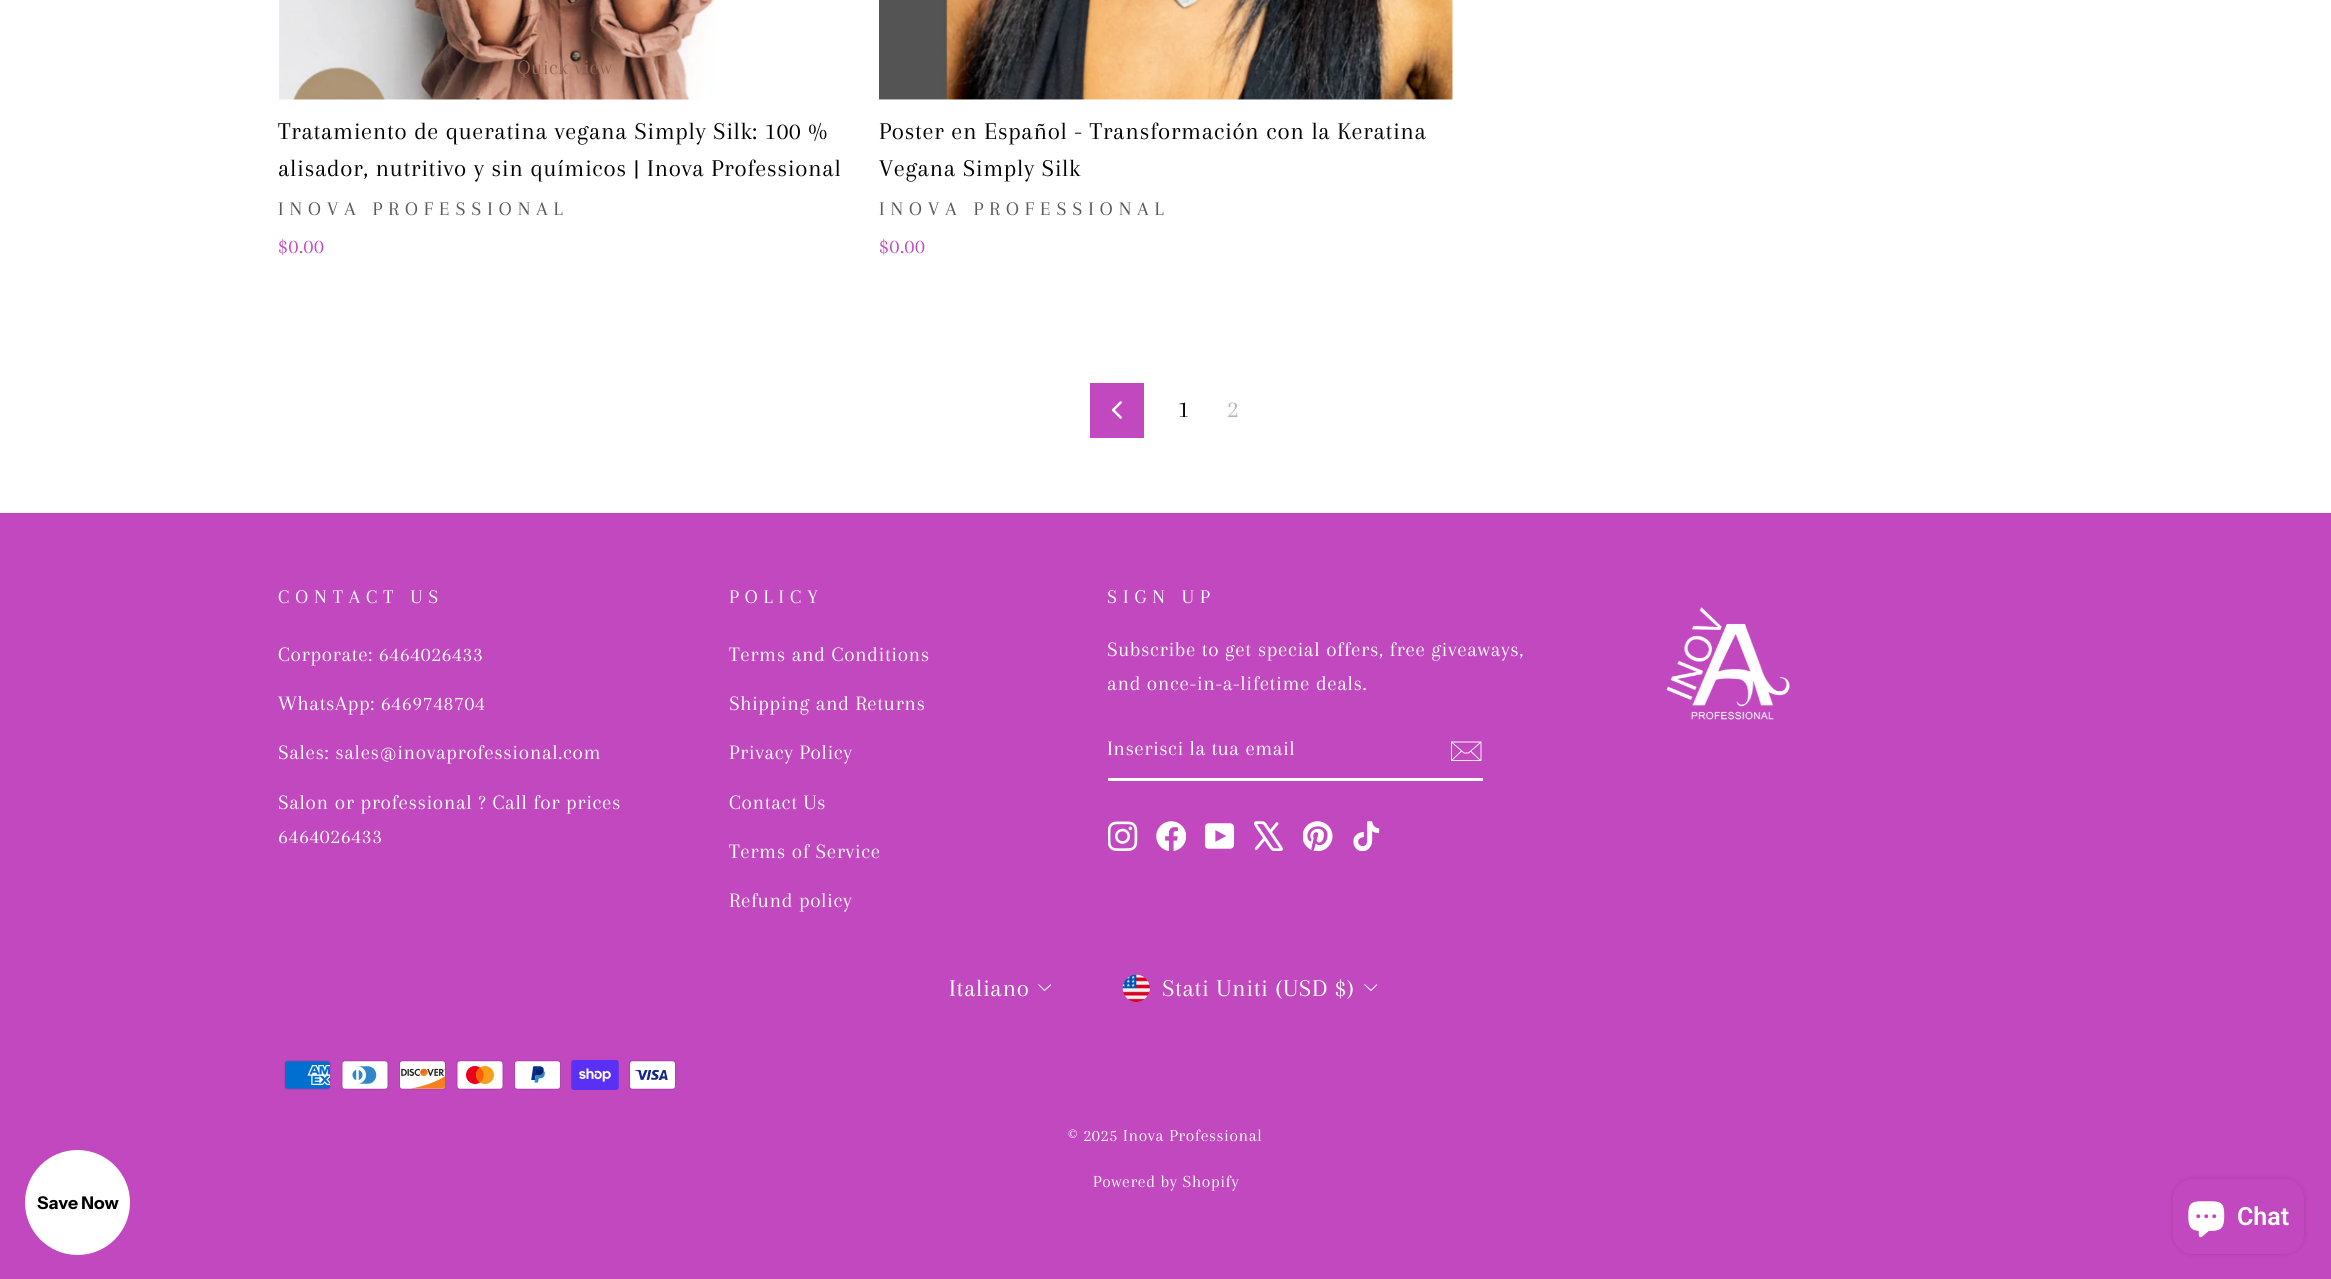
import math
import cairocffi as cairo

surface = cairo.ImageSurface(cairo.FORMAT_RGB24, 2331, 1279)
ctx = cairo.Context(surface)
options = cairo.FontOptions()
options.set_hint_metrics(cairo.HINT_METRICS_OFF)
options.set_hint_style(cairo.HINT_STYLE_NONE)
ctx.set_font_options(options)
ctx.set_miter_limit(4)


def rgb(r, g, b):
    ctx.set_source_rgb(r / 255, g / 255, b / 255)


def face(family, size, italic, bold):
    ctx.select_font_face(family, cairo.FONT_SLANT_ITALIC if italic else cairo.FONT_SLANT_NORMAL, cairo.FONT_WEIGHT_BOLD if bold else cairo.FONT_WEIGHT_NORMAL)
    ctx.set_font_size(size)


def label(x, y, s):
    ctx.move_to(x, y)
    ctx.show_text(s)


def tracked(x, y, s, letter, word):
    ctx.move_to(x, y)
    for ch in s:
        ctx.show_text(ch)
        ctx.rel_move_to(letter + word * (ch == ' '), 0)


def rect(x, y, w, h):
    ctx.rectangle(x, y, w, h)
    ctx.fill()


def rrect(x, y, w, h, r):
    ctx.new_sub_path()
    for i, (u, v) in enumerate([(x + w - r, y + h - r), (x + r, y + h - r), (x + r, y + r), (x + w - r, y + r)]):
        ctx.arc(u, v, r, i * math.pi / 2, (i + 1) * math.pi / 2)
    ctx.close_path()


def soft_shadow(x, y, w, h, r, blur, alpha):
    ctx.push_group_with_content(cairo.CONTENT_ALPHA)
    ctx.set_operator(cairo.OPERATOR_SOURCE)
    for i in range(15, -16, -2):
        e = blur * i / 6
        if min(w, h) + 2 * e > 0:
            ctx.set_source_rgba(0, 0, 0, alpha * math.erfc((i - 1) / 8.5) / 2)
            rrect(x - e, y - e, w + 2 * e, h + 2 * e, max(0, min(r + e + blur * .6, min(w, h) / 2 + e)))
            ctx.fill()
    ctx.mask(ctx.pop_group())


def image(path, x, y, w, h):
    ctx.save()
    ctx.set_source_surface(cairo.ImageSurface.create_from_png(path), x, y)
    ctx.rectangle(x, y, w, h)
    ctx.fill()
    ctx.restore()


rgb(255, 255, 255)
ctx.paint()
image('image0.png', 279, 0, 437, 100)
face('Arapey', 21.25, 0, 0)
rgb(150, 102, 86)
tracked(517, 74, 'Quick view', 0.5, 0)
face('Arapey', 25, 0, 0)
rgb(0, 0, 0)
tracked(278, 139, 'Tratamiento de queratina vegana Simply Silk: 100 %', 0.62, 0)
tracked(278, 176, 'alisador, nutritivo y sin químicos | Inova Professional', 0.62, 0)
face('Arapey', 20, 0, 0)
rgb(89, 89, 89)
tracked(278, 215, 'INOVA PROFESSIONAL', 6, 0)
face('Arapey', 21.25, 0, 0)
rgb(194, 72, 192)
tracked(278, 253, '$0.00', 0.62, 0)
image('image1.png', 879, 0, 574, 100)
face('Arapey', 25, 0, 0)
rgb(0, 0, 0)
tracked(879, 139, 'Poster en Español - Transformación con la Keratina', 0.62, 0)
tracked(879, 176, 'Vegana Simply Silk', 0.62, 0)
face('Arapey', 20, 0, 0)
rgb(89, 89, 89)
tracked(879, 215, 'INOVA PROFESSIONAL', 6, 0)
face('Arapey', 21.25, 0, 0)
rgb(194, 72, 192)
tracked(879, 253, '$0.00', 0.62, 0)
rect(1090, 383, 54, 55)
image('image2.png', 1111, 401, 11, 18)
face('Arapey', 25, 0, 0)
rgb(0, 0, 0)
tracked(1178, 417, '1', 0.62, 0)
rgb(179, 179, 179)
tracked(1227, 417, '2', 0.62, 0)
rgb(194, 72, 192)
rect(0, 513, 2331, 766)
face('Arapey', 20, 0, 0)
rgb(255, 255, 255)
tracked(278, 603, 'CONTACT US', 6, 0)
face('Arapey', 21.25, 0, 0)
tracked(278, 661, 'Corporate: 6464026433', 0.62, 0)
tracked(278, 710, 'WhatsApp: 6469748704', 0.62, 0)
tracked(278, 759, 'Sales: sales@inovaprofessional.com', 0.62, 0)
tracked(278, 809, 'Salon or professional ? Call for prices', 0.62, 0)
tracked(278, 843, '6464026433', 0.62, 0)
face('Arapey', 20, 0, 0)
tracked(729, 603, 'POLICY', 6, 0)
face('Arapey', 21.25, 0, 0)
tracked(729, 661, 'Terms and Conditions', 0.62, 0)
tracked(729, 710, 'Shipping and Returns', 0.62, 0)
tracked(729, 759, 'Privacy Policy', 0.62, 0)
tracked(729, 809, 'Contact Us', 0.62, 0)
tracked(729, 858, 'Terms of Service', 0.62, 0)
tracked(729, 907, 'Refund policy', 0.62, 0)
face('Arapey', 20, 0, 0)
tracked(1107, 603, 'SIGN UP', 6, 0)
face('Arapey', 21.25, 0, 0)
tracked(1107, 656, 'Subscribe to get special offers, free giveaways,', 0.62, 0)
tracked(1107, 690, 'and once-in-a-lifetime deals.', 0.62, 0)
rect(1108, 778, 375, 3)
tracked(1107, 755, 'Inserisci la tua email', 0.5, 0)
ctx.new_path()
ctx.move_to(1481, 760.5)
ctx.line_to(1451.5, 760.5)
ctx.line_to(1451.5, 742)
ctx.line_to(1481, 742)
ctx.close_path()
ctx.move_to(1451.5, 742)
ctx.line_to(1464, 753)
ctx.line_to(1468.5, 753)
ctx.line_to(1481, 742)
ctx.move_to(1461.5, 751)
ctx.line_to(1452, 760)
ctx.move_to(1480.5, 760.5)
ctx.line_to(1470.5, 751)
ctx.set_line_width(0.9)
ctx.stroke()
image('image3.png', 1108, 821, 30, 30)
image('image4.png', 1156, 821, 30, 30)
image('image5.png', 1205, 823, 30, 26)
image('image6.png', 1254, 821, 29, 30)
image('image7.png', 1303, 821, 30, 30)
image('image8.png', 1353, 821, 27, 30)
image('image9.png', 1666, 607, 124, 113)
face('Arapey', 25, 0, 0)
tracked(949, 996, 'Italiano', 0.62, 0)
ctx.new_path()
ctx.move_to(1038.5, 984.5)
ctx.line_to(1044.5, 990.5)
ctx.line_to(1051, 984.5)
ctx.set_line_width(1)
ctx.stroke()
image('image10.png', 1122, 974, 28, 28)
tracked(1162, 996, 'Stati Uniti (USD $)', 0.62, 0)
ctx.new_path()
ctx.move_to(1364.5, 984.5)
ctx.line_to(1371, 990.5)
ctx.line_to(1377, 984.5)
ctx.stroke()
image('image11.png', 284, 1060, 47, 30)
image('image12.png', 341, 1060, 48, 30)
image('image13.png', 399, 1060, 47, 30)
image('image14.png', 456, 1060, 48, 30)
image('image15.png', 514, 1060, 47, 30)
image('image16.png', 571, 1060, 48, 30)
image('image17.png', 629, 1060, 47, 30)
face('Arapey', 17.5, 0, 0)
tracked(1068, 1141, '© 2025 Inova Professional', 0.62, 0)
tracked(1093, 1187, 'Powered by Shopify', 0.62, 0)
ctx.new_path()
ctx.arc(77.5, 1202.5, 52.5, 0, 2 * math.pi)
ctx.fill()
face('Instrument Sans', 17.5, 0, 1)
rgb(0, 0, 0)
label(37, 1209, 'Save Now')
rgb(0, 0, 0)
soft_shadow(2173, 1179, 131, 75, 20, 3, 0.15)
rgb(194, 72, 192)
rrect(2173, 1179, 131, 75, 20)
ctx.fill()
image('image18.png', 2188, 1201, 37, 37)
face('Roboto SemiBold', 25, 0, 0)
rgb(255, 255, 255)
label(2237, 1225, 'Chat')
surface.write_to_png('render.png')
